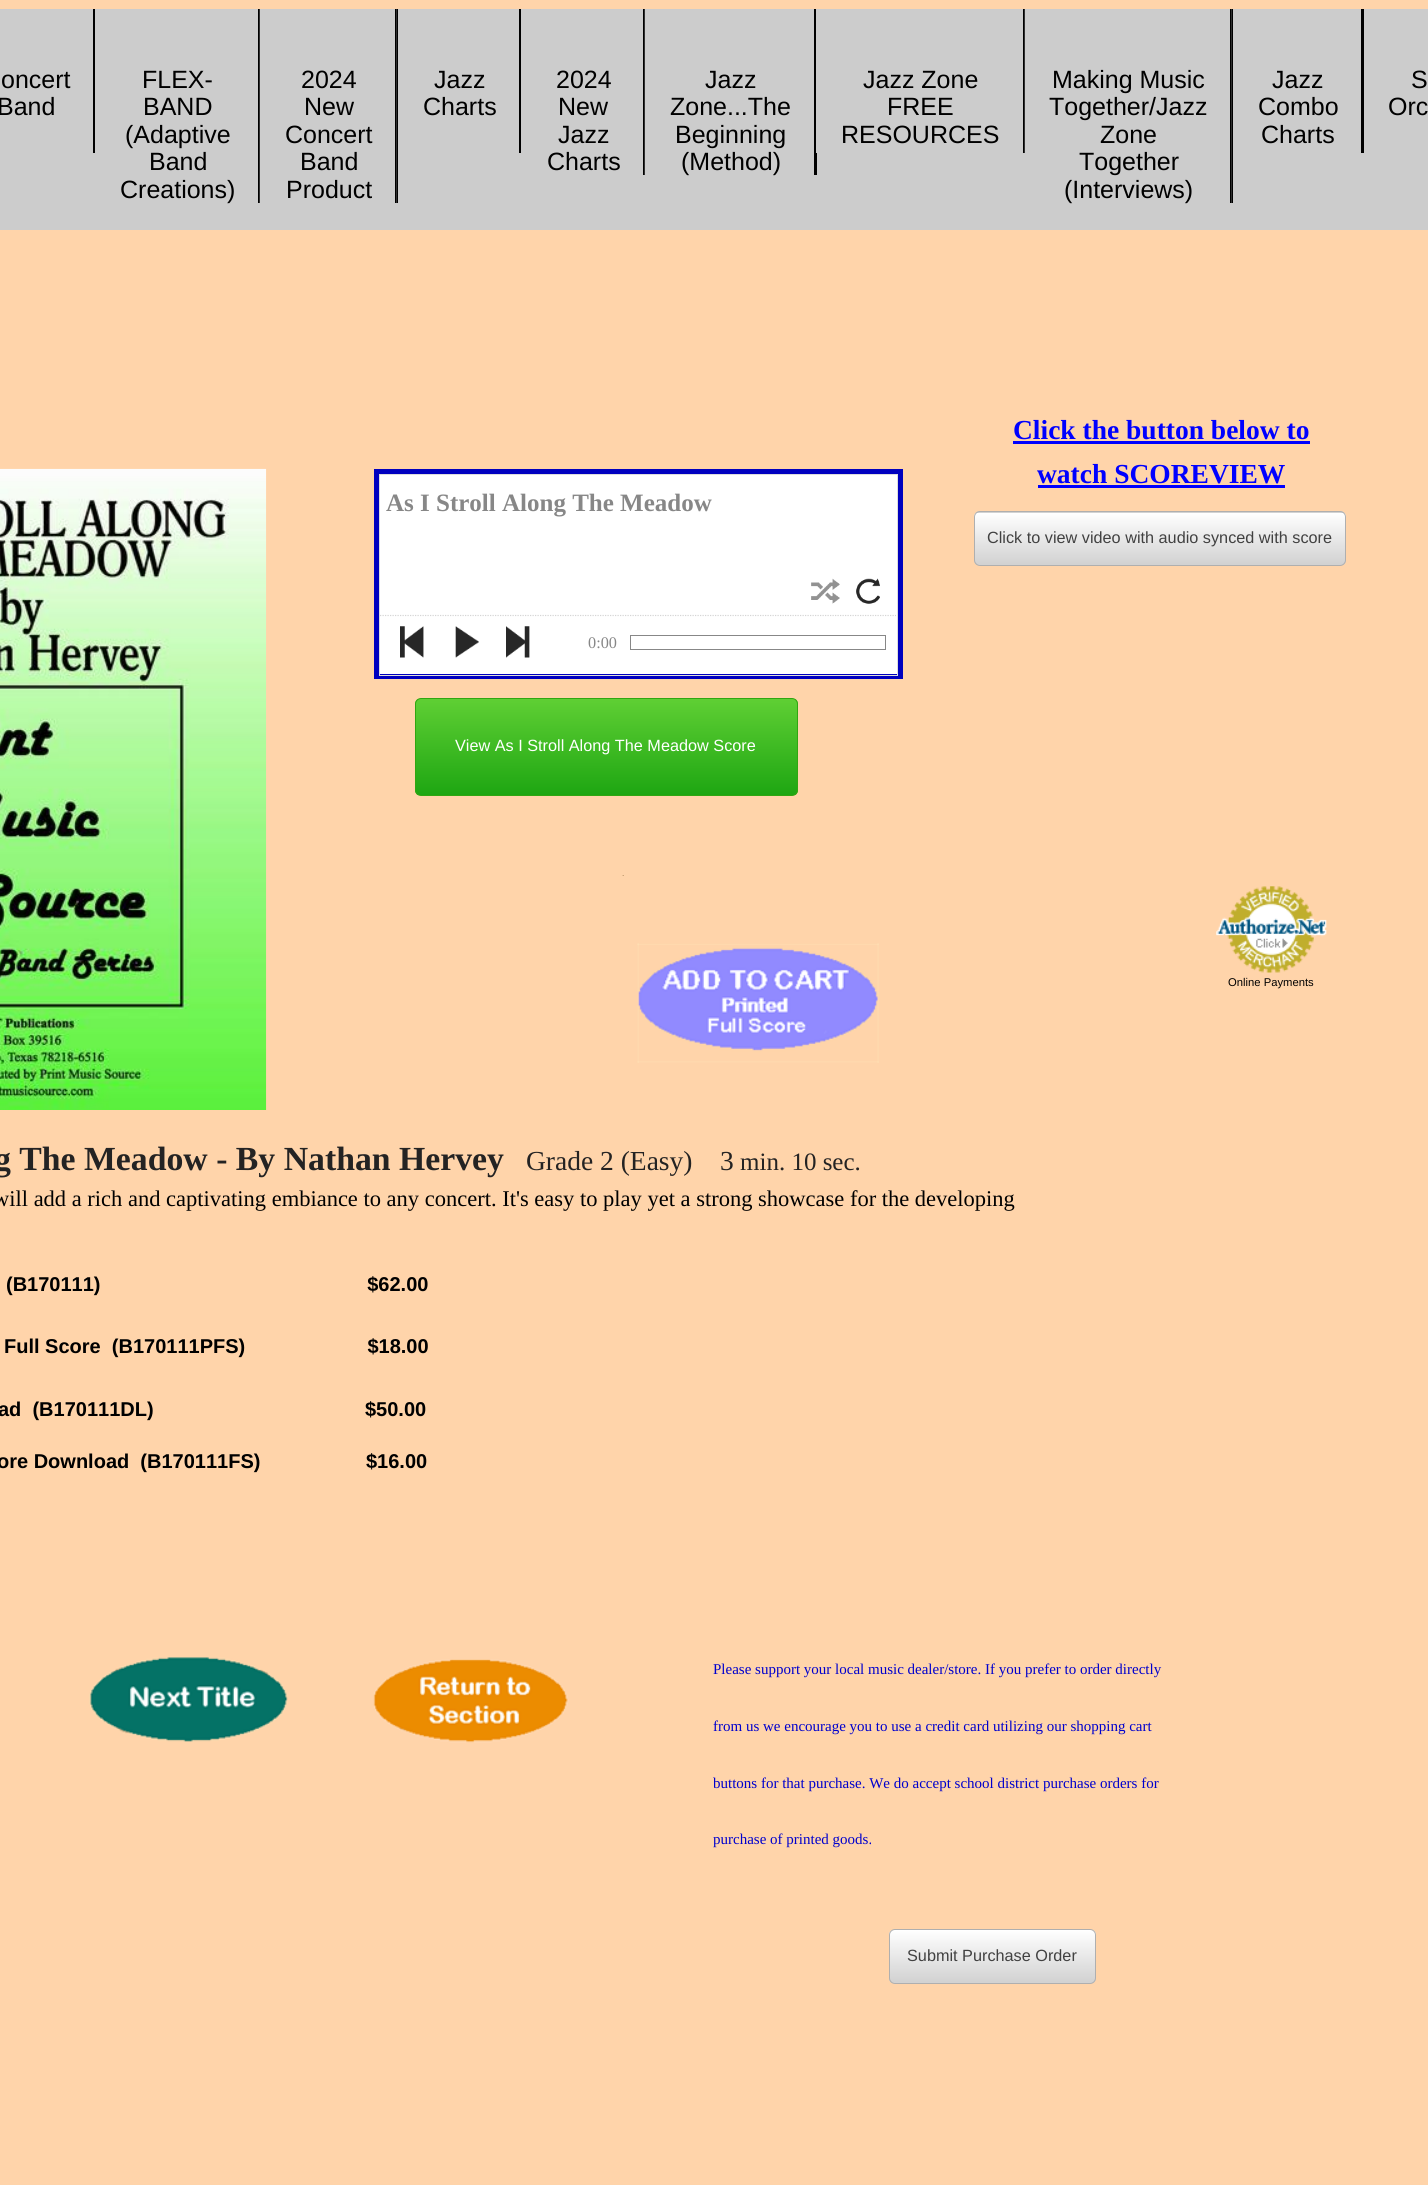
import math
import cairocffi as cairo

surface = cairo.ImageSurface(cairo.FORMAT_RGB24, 1428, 2185)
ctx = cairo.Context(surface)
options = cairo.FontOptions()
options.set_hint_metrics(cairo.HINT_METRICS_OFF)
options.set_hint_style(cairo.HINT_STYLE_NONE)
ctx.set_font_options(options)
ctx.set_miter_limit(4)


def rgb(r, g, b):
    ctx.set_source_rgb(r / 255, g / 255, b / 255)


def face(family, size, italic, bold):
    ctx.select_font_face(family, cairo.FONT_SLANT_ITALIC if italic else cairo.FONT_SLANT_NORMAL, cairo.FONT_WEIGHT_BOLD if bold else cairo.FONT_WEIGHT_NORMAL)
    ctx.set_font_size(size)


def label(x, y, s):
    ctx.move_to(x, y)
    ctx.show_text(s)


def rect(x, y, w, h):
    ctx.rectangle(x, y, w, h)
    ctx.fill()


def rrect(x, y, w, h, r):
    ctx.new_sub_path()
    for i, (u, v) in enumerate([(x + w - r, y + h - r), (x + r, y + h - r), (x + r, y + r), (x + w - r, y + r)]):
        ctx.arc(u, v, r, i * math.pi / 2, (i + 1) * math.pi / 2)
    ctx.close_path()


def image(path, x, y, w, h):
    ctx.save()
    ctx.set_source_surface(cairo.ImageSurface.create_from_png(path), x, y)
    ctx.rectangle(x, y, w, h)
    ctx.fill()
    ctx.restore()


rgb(255, 212, 170)
ctx.paint()
rgb(204, 204, 204)
rect(0, 9, 95, 221)
face('Liberation Sans', 25, 0, 0)
rgb(0, 0, 0)
label(1, 88, 'oncert')
rect(93, 9, 2, 144)
label(-3, 115, 'Band')
rgb(204, 204, 204)
rect(95, 203, 303, 27)
rect(95, 9, 163, 194)
rgb(0, 0, 0)
label(142, 88, 'FLEX-')
rect(258, 9, 1, 194)
rgb(47, 47, 47)
rect(259, 9, 1, 194)
rgb(0, 0, 0)
label(143, 115, 'BAND')
label(125, 143, '(Adaptive')
label(149, 170, 'Band')
label(120, 198, 'Creations)')
rgb(204, 204, 204)
rect(260, 9, 135, 194)
rgb(0, 0, 0)
rect(395, 9, 3, 194)
label(301, 88, '2024')
rgb(47, 47, 47)
rect(396, 9, 1, 194)
rgb(0, 0, 0)
label(304, 115, 'New')
label(285, 143, 'Concert')
label(300, 170, 'Band')
label(286, 198, 'Product')
rgb(204, 204, 204)
rect(398, 9, 123, 221)
rgb(0, 0, 0)
label(434, 88, 'Jazz')
rect(519, 9, 2, 144)
label(423, 115, 'Charts')
rgb(204, 204, 204)
rect(521, 175, 295, 55)
rect(521, 9, 122, 166)
rgb(0, 0, 0)
label(556, 88, '2024')
rect(643, 9, 1, 166)
rgb(47, 47, 47)
rect(644, 9, 1, 166)
rgb(0, 0, 0)
label(558, 115, 'New')
label(558, 143, 'Jazz')
label(547, 170, 'Charts')
rgb(204, 204, 204)
rect(645, 9, 169, 166)
rgb(0, 0, 0)
label(705, 88, 'Jazz')
rgb(204, 204, 204)
rect(816, 153, 209, 77)
rgb(0, 0, 0)
rect(814, 9, 3, 166)
label(670, 115, 'Zone...The')
label(675, 143, 'Beginning')
label(681, 170, '(Method)')
rgb(204, 204, 204)
rect(816, 9, 207, 144)
rgb(0, 0, 0)
label(863, 88, 'Jazz Zone')
rect(1023, 9, 1, 144)
rgb(47, 47, 47)
rect(1024, 9, 1, 144)
rgb(0, 0, 0)
label(887, 115, 'FREE')
label(841, 143, 'RESOURCES')
rgb(204, 204, 204)
rect(1025, 203, 208, 27)
rect(1025, 9, 205, 194)
rgb(0, 0, 0)
rect(1230, 9, 3, 194)
label(1052, 88, 'Making Music')
rgb(47, 47, 47)
rect(1231, 9, 1, 194)
rgb(0, 0, 0)
label(1049, 115, 'Together/Jazz')
label(1100, 143, 'Zone')
label(1079, 170, 'Together')
label(1064, 198, '(Interviews)')
rgb(204, 204, 204)
rect(1233, 9, 195, 221)
rgb(0, 0, 0)
label(1272, 88, 'Jazz')
rect(1361, 9, 3, 144)
label(1258, 115, 'Combo')
label(1261, 143, 'Charts')
label(1411, 88, 'S')
label(1388, 115, 'Orc')
face('Liberation Serif', 27.5, 0, 1)
rgb(0, 0, 255)
label(1013, 439, 'Click the button below to')
rect(1013, 441, 297, 3)
label(1037, 483, 'watch SCOREVIEW')
rect(1038, 485, 247, 3)
image('image0.png', 0, 468, 267, 642)
rgb(255, 255, 255)
rect(380, 475, 517, 199)
ctx.rectangle(376.5, 471.5, 524, 205)
rgb(0, 0, 191)
ctx.set_line_width(5)
ctx.stroke()
ctx.rectangle(379.5, 474.5, 518, 201)
rgb(221, 221, 221)
ctx.set_line_width(1)
ctx.stroke()
face('Liberation Serif', 25, 0, 1)
rgb(135, 135, 135)
label(386, 511, 'As I Stroll Along The Meadow')
image('image1.png', 811, 578, 29, 26)
image('image2.png', 856, 578, 24, 26)
ctx.new_path()
ctx.move_to(380, 615.5)
ctx.line_to(896, 615.5)
rgb(213, 213, 213)
ctx.set_line_width(1.2)
ctx.set_dash([1.25, 1.25])
ctx.stroke()
image('image3.png', 400, 626, 24, 32)
image('image4.png', 455, 626, 24, 32)
image('image5.png', 506, 626, 24, 32)
face('Liberation Serif', 16.25, 0, 0)
rgb(135, 135, 135)
label(588, 648, '0:00')
ctx.rectangle(630.5, 635.5, 255, 14)
ctx.set_line_width(1)
ctx.set_dash([])
ctx.stroke()
ctx.save()
rrect(974, 511, 372, 55, 6)
ctx.clip()
gradient = cairo.LinearGradient(1160, 460, 1160, 513)
gradient.add_color_stop_rgba(0, 1, 1, 1, 1)
gradient.add_color_stop_rgba(1, 0.82, 0.82, 0.82, 1)
ctx.set_source(gradient)
rect(974, 511, 372, 2)
gradient = cairo.LinearGradient(1160, 513, 1160, 565)
gradient.add_color_stop_rgba(0, 1, 1, 1, 1)
gradient.add_color_stop_rgba(1, 0.82, 0.82, 0.82, 1)
ctx.set_source(gradient)
rect(974, 513, 372, 52)
ctx.restore()
rrect(974.5, 511.5, 371, 54, 5.5)
rgb(175, 175, 175)
ctx.stroke()
face('Liberation Sans', 16.25, 0, 0)
rgb(65, 65, 65)
label(987, 543, 'Click to view video with audio synced with score')
ctx.save()
rrect(415, 698, 383, 98, 6)
ctx.clip()
gradient = cairo.LinearGradient(606, 699, 606, 795)
gradient.add_color_stop_rgba(0, 0.373, 0.812, 0.204, 1)
gradient.add_color_stop_rgba(1, 0.118, 0.651, 0.071, 1)
ctx.set_source(gradient)
rect(415, 699, 383, 96)
ctx.restore()
rrect(415.5, 698.5, 382, 97, 5.5)
rgb(48, 166, 18)
ctx.stroke()
rgb(255, 255, 255)
label(455, 751, 'View As I Stroll Along The Meadow Score')
image('image6.png', 622, 875, 2, 1)
image('image7.png', 637, 943, 242, 120)
image('image8.png', 1216, 886, 111, 87)
face('Liberation Sans', 11.25, 0, 0)
rgb(0, 0, 0)
label(1228, 986, 'Online Payments')
face('Liberation Serif', 33.75, 0, 1)
rgb(36, 35, 35)
label(-6, 1170, 'g The Meadow - By Nathan Hervey')
face('Liberation Serif', 27.5, 0, 0)
label(526, 1170, 'Grade 2 (Easy)    3')
face('Liberation Serif', 25, 0, 0)
label(740, 1170, 'min. 10 sec.')
face('Liberation Serif', 22.5, 0, 0)
rgb(0, 0, 0)
label(-7, 1206, 'will add a rich and captivating embiance to any concert. It\'s easy to play yet a strong showcase for the developing')
face('Liberation Sans', 20, 0, 1)
label(6, 1291, '(B170111)                                                $62.00')
label(4, 1353, 'Full Score  (B170111PFS)                      $18.00')
label(-2, 1416, 'ad  (B170111DL)')
label(365, 1416, '$50.00')
label(-3, 1468, 'ore Download  (B170111FS)                   $16.00')
image('image9.png', 89, 1657, 199, 85)
image('image10.png', 373, 1659, 196, 84)
face('Liberation Serif', 15, 0, 0)
rgb(0, 0, 205)
label(713, 1674, 'Please support your local music dealer/store. If you prefer to order directly')
label(713, 1731, 'from us we encourage you to use a credit card utilizing our shopping cart')
label(713, 1788, 'buttons for that purchase. We do accept school district purchase orders for')
label(713, 1844, 'purchase of printed goods.')
ctx.save()
rrect(889, 1929, 207, 55, 6)
ctx.clip()
gradient = cairo.LinearGradient(993, 1930, 993, 1983)
gradient.add_color_stop_rgba(0, 1, 1, 1, 1)
gradient.add_color_stop_rgba(1, 0.82, 0.82, 0.82, 1)
ctx.set_source(gradient)
rect(889, 1930, 207, 53)
ctx.restore()
rrect(889.5, 1929.5, 206, 54, 5.5)
rgb(175, 175, 175)
ctx.stroke()
face('Liberation Sans', 16.25, 0, 0)
rgb(65, 65, 65)
label(907, 1961, 'Submit Purchase Order')
surface.write_to_png('render.png')
